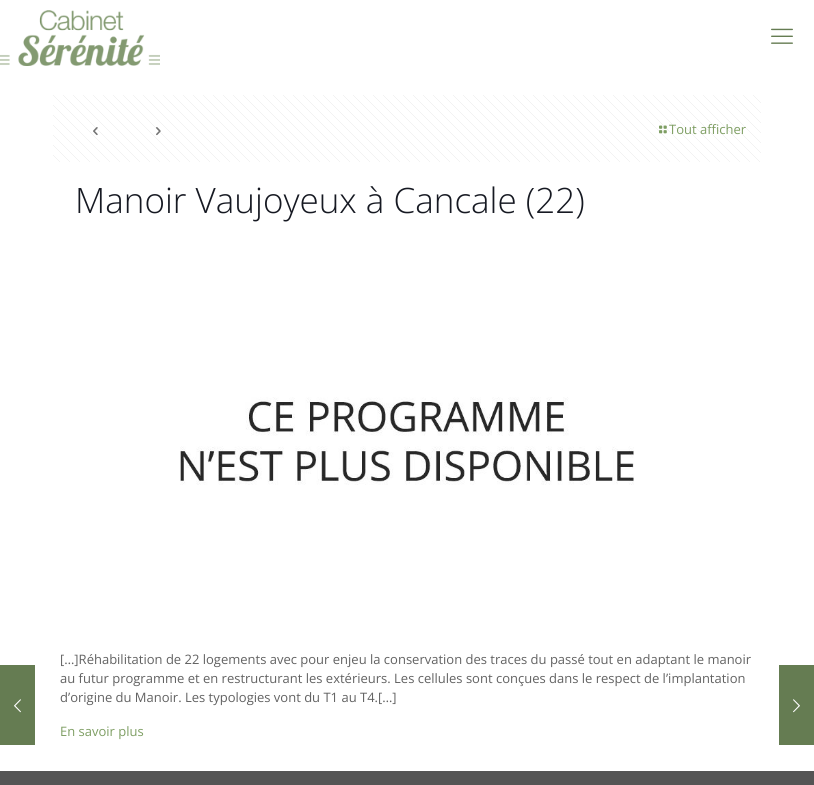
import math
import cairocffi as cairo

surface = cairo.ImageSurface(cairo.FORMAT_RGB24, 814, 785)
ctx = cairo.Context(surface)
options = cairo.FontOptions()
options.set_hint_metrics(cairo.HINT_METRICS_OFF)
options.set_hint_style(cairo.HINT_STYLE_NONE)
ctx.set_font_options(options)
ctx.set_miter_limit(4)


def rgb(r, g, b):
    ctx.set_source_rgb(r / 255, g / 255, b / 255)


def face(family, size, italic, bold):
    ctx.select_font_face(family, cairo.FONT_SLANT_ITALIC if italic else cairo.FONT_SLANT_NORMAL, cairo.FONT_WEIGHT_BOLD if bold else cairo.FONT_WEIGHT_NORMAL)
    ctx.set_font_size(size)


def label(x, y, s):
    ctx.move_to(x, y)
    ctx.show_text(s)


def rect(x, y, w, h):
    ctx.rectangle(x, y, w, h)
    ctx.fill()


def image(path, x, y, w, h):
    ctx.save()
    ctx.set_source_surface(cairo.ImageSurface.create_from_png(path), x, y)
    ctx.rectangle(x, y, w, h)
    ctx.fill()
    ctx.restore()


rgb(255, 255, 255)
ctx.paint()
image('image0.png', 0, 10, 160, 56)
image('image1.png', 771, 28, 22, 16)
rgb(101, 124, 82)
rect(0, 665, 35, 80)
image('image2.png', 14, 699, 7, 14)
image('image3.png', 53, 95, 708, 67)
image('image4.png', 93, 127, 5, 9)
image('image5.png', 156, 127, 5, 9)
image('image6.png', 659, 125, 8, 9)
face('Open Sans', 13, 0, 0)
rgb(126, 158, 99)
label(669, 134, 'Tout afficher')
face('Open Sans Light', 35, 0, 0)
rgb(22, 25, 34)
label(75, 213, 'Manoir Vaujoyeux à Cancale (22)')
image('image7.png', 180, 397, 454, 88)
face('Open Sans', 13, 0, 0)
rgb(98, 98, 98)
label(60, 664, '[…]Réhabilitation de 22 logements avec pour enjeu la conservation des traces du passé tout en adaptant le manoir')
label(60, 683, 'au futur programme et en restructurant les extérieurs. Les cellules sont conçues dans le respect de l’implantation')
label(60, 702, 'd’origine du Manoir. Les typologies vont du T1 au T4.[…]')
rgb(126, 158, 99)
label(60, 736, 'En savoir plus')
rgb(84, 84, 84)
rect(0, 771, 814, 14)
rgb(101, 124, 82)
rect(779, 665, 35, 80)
image('image8.png', 793, 699, 7, 14)
surface.write_to_png('render.png')
